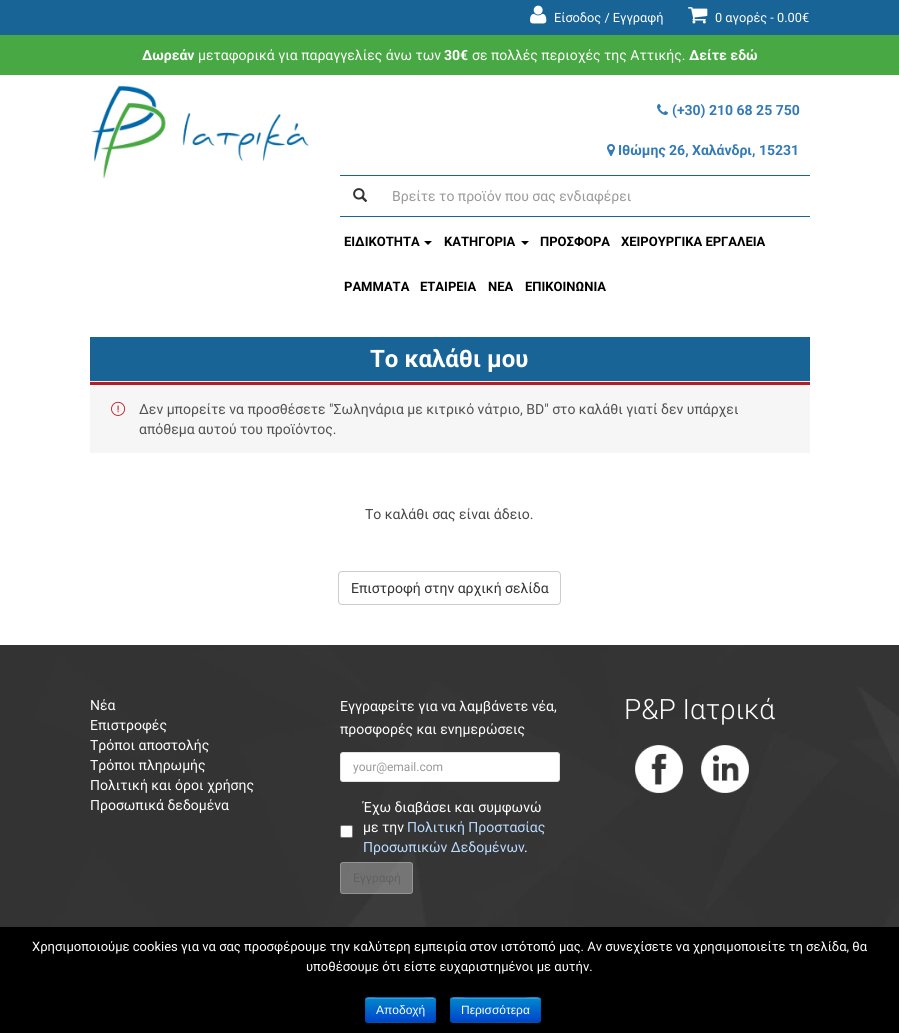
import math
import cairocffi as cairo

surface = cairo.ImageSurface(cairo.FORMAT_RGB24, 899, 1033)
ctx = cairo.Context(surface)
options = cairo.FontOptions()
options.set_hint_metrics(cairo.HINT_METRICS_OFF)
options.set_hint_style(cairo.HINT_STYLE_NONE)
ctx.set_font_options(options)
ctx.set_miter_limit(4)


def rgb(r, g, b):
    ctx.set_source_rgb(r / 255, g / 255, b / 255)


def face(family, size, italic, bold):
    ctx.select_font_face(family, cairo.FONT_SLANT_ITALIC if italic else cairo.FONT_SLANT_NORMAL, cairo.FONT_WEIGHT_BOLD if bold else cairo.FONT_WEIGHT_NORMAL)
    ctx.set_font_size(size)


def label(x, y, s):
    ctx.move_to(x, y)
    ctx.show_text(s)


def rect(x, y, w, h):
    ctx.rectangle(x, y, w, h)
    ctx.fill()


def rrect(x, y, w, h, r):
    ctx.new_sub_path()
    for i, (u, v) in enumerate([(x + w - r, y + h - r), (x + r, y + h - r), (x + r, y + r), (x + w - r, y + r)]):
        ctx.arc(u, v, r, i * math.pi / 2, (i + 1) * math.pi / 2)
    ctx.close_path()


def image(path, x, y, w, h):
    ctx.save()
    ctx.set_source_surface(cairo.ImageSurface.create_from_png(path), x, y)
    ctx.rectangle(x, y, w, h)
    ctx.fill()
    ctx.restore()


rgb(255, 255, 255)
ctx.paint()
rgb(25, 100, 151)
rect(0, 0, 899, 35)
image('image0.png', 530, 5, 17, 19)
face('Roboto', 12.75, 0, 0)
rgb(255, 255, 255)
label(554, 22, 'Είσοδος / Εγγραφή')
image('image1.png', 688, 7, 20, 17)
label(715, 22, '0 αγορές - 0.00€')
rgb(72, 168, 67)
rect(0, 35, 899, 40)
face('Roboto', 14, 0, 1)
rgb(255, 255, 255)
label(142, 60, 'Δωρεάν')
face('Roboto', 14, 0, 0)
label(198, 60, 'μεταφορικά για παραγγελίες άνω των')
face('Roboto', 14, 0, 1)
label(444, 60, '30€')
face('Roboto', 14, 0, 0)
label(472, 60, 'σε πολλές περιοχές της Αττικής.')
face('Roboto', 14, 0, 1)
label(689, 60, 'Δείτε εδώ')
image('image2.png', 91, 85, 218, 94)
image('image3.png', 657, 104, 11, 11)
rgb(51, 122, 183)
label(672, 115, '(+30) 210 68 25 750')
image('image4.png', 607, 144, 8, 12)
label(618, 155, 'Ιθώμης 26, Χαλάνδρι, 15231')
rgb(25, 100, 151)
rect(340, 175, 470, 1)
rect(340, 216, 470, 1)
image('image5.png', 353, 188, 15, 14)
face('Roboto', 14, 0, 0)
rgb(153, 153, 153)
label(392, 201, 'Βρείτε το προϊόν που σας ενδιαφέρει')
face('Roboto', 13, 0, 1)
rgb(0, 0, 0)
label(344, 246, 'ΕΙΔΙΚΟΤΗΤΑ')
ctx.new_path()
ctx.move_to(424, 241)
ctx.line_to(432, 241)
ctx.line_to(428, 245)
ctx.close_path()
ctx.fill()
label(444, 246, 'ΚΑΤΗΓΟΡΙΑ')
ctx.new_path()
ctx.move_to(521, 241)
ctx.line_to(529, 241)
ctx.line_to(525, 245)
ctx.close_path()
ctx.fill()
label(540, 246, 'ΠΡΟΣΦΟΡΑ')
label(621, 246, 'ΧΕΙΡΟΥΡΓΙΚΑ ΕΡΓΑΛΕΙΑ')
label(344, 291, 'ΡΑΜΜΑΤΑ')
label(420, 291, 'ΕΤΑΙΡΕΙΑ')
label(488, 291, 'ΝΕΑ')
label(525, 291, 'ΕΠΙΚΟΙΝΩΝΙΑ')
rgb(25, 100, 151)
rect(90, 337, 720, 44)
rgb(238, 238, 238)
rect(90, 381, 720, 1)
face('Roboto', 24, 0, 1)
rgb(255, 255, 255)
label(370, 367, 'Το καλάθι μου')
rgb(247, 246, 247)
rect(90, 385, 720, 68)
rgb(184, 28, 35)
rect(90, 382, 720, 3)
image('image6.png', 111, 401, 15, 15)
face('Roboto', 14, 0, 0)
rgb(81, 81, 81)
label(139, 414, 'Δεν μπορείτε να προσθέσετε "Σωληνάρια με κιτρικό νάτριο, BD" στο καλάθι γιατί δεν υπάρχει')
label(139, 434, 'απόθεμα αυτού του προϊόντος.')
rgb(71, 71, 71)
label(365, 519, 'Το καλάθι σας είναι άδειο.')
rrect(338.5, 571.5, 222, 33, 3.5)
rgb(204, 204, 204)
ctx.set_line_width(1)
ctx.stroke()
rgb(51, 51, 51)
label(351, 593, 'Επιστροφή στην αρχική σελίδα')
image('image7.png', 0, 645, 899, 282)
rgb(255, 255, 255)
label(90, 710, 'Νέα')
label(90, 730, 'Επιστροφές')
label(90, 750, 'Τρόποι αποστολής')
label(90, 770, 'Τρόποι πληρωμής')
label(90, 790, 'Πολιτική και όροι χρήσης')
label(90, 810, 'Προσωπικά δεδομένα')
label(340, 711, 'Εγγραφείτε για να λαμβάνετε νέα,')
label(340, 734, 'προσφορές και ενημερώσεις')
rrect(340.5, 752.5, 219, 29, 2.5)
ctx.fill_preserve()
rgb(225, 225, 225)
ctx.stroke()
face('Roboto', 12, 0, 0)
rgb(153, 153, 153)
label(353, 771, 'your@email.com')
rgb(255, 255, 255)
rrect(340.5, 825.5, 12, 12, 1.5)
ctx.fill_preserve()
rgb(118, 118, 118)
ctx.stroke()
face('Roboto', 14, 0, 0)
rgb(255, 255, 255)
label(363, 812, 'Έχω διαβάσει και συμφωνώ')
label(363, 832, 'με την')
rgb(186, 220, 255)
label(407, 832, 'Πολιτική Προστασίας')
label(363, 852, 'Προσωπικών Δεδομένων')
rgb(255, 255, 255)
label(524, 852, '.')
ctx.set_source_rgba(1, 1, 1, 0.3)
rrect(340, 862, 73, 32, 3)
ctx.fill()
rrect(340.5, 862.5, 72, 31, 2.5)
ctx.set_source_rgba(0.882, 0.882, 0.882, 0.3)
ctx.stroke()
face('Roboto', 12, 0, 0)
rgb(96, 96, 96)
label(353, 882, 'Εγγραφή')
face('Roboto Light', 28, 0, 0)
rgb(255, 255, 255)
label(624, 719, 'P&P Ιατρικά')
image('image8.png', 635, 745, 48, 48)
image('image9.png', 701, 745, 48, 48)
rgb(0, 0, 0)
rect(0, 927, 899, 106)
face('Roboto', 13, 0, 0)
rgb(255, 255, 255)
label(32, 951, 'Χρησιμοποιούμε cookies για να σας προσφέρουμε την καλύτερη εμπειρία στον ιστότοπό μας. Αν συνεχίσετε να χρησιμοποιείτε τη σελίδα, θα')
label(306, 971, 'υποθέσουμε ότι είστε ευχαριστημένοι με αυτήν.')
rgb(0, 109, 204)
rrect(365, 997, 71, 26, 3)
ctx.fill()
ctx.save()
rrect(365, 997, 71, 26, 3)
ctx.clip()
gradient = cairo.LinearGradient(401, 998, 401, 1022)
gradient.add_color_stop_rgba(0, 0, 0.533, 0.8, 1)
gradient.add_color_stop_rgba(1, 0, 0.267, 0.8, 1)
ctx.set_source(gradient)
rect(365, 998, 71, 24)
ctx.restore()
ctx.set_source_rgba(1, 1, 1, 0.2)
ctx.new_path()
ctx.move_to(368, 999)
ctx.line_to(434, 999)
ctx.line_to(435, 1001)
ctx.curve_to(435, 995, 426, 998, 422, 998)
ctx.line_to(379, 998)
ctx.curve_to(375, 998, 366, 995, 366, 1001)
ctx.curve_to(366, 1000, 367, 999, 368, 999)
ctx.close_path()
ctx.fill()
ctx.new_path()
ctx.move_to(435, 1022)
ctx.line_to(433, 1022.5)
ctx.line_to(422, 1022.5)
ctx.curve_to(416, 1022.5, 368.5, 1023.5, 366.5, 1022)
ctx.line_to(366, 1022)
ctx.set_source_rgba(0, 0, 0, 0.25)
ctx.stroke()
ctx.new_path()
ctx.move_to(366, 1022)
ctx.curve_to(364.5, 1020, 365.5, 1012.5, 365.5, 1010)
ctx.curve_to(365.5, 995, 363, 997.5, 379, 997.5)
ctx.line_to(422, 997.5)
ctx.curve_to(439.5, 997.5, 435.5, 995.5, 435.5, 1013.5)
ctx.curve_to(435.5, 1015.5, 436.5, 1020, 435, 1022)
ctx.set_source_rgba(0, 0, 0, 0.1)
ctx.stroke()
face('Liberation Sans', 12, 0, 0)
rgb(255, 255, 255)
label(376, 1014, 'Αποδοχή')
rgb(0, 109, 204)
rrect(450, 997, 91, 26, 3)
ctx.fill()
ctx.save()
rrect(450, 997, 91, 26, 3)
ctx.clip()
gradient = cairo.LinearGradient(496, 998, 496, 1022)
gradient.add_color_stop_rgba(0, 0, 0.533, 0.8, 1)
gradient.add_color_stop_rgba(1, 0, 0.267, 0.8, 1)
ctx.set_source(gradient)
rect(450, 998, 91, 24)
ctx.restore()
ctx.set_source_rgba(1, 1, 1, 0.2)
ctx.new_path()
ctx.move_to(453, 999)
ctx.line_to(538, 999)
ctx.curve_to(539, 999, 540, 1000, 540, 1001)
ctx.curve_to(540, 994, 526, 998, 524, 998)
ctx.line_to(467, 998)
ctx.curve_to(465, 998, 451, 994, 451, 1001)
ctx.curve_to(451, 1000, 452, 999, 453, 999)
ctx.close_path()
ctx.fill()
ctx.new_path()
ctx.move_to(540, 1022)
ctx.line_to(539.5, 1022)
ctx.curve_to(537.5, 1023.5, 474.5, 1022.5, 467, 1022.5)
ctx.line_to(453, 1022.5)
ctx.line_to(451, 1022)
ctx.set_source_rgba(0, 0, 0, 0.25)
ctx.stroke()
ctx.new_path()
ctx.move_to(451, 1022)
ctx.curve_to(449.5, 1020, 450.5, 1015.5, 450.5, 1013.5)
ctx.curve_to(450.5, 994, 447, 997.5, 467, 997.5)
ctx.line_to(524, 997.5)
ctx.curve_to(544, 997.5, 540.5, 994, 540.5, 1013.5)
ctx.curve_to(540.5, 1015.5, 541.5, 1020, 540, 1022)
ctx.set_source_rgba(0, 0, 0, 0.1)
ctx.stroke()
rgb(255, 255, 255)
label(461, 1014, 'Περισσότερα')
surface.write_to_png('render.png')
